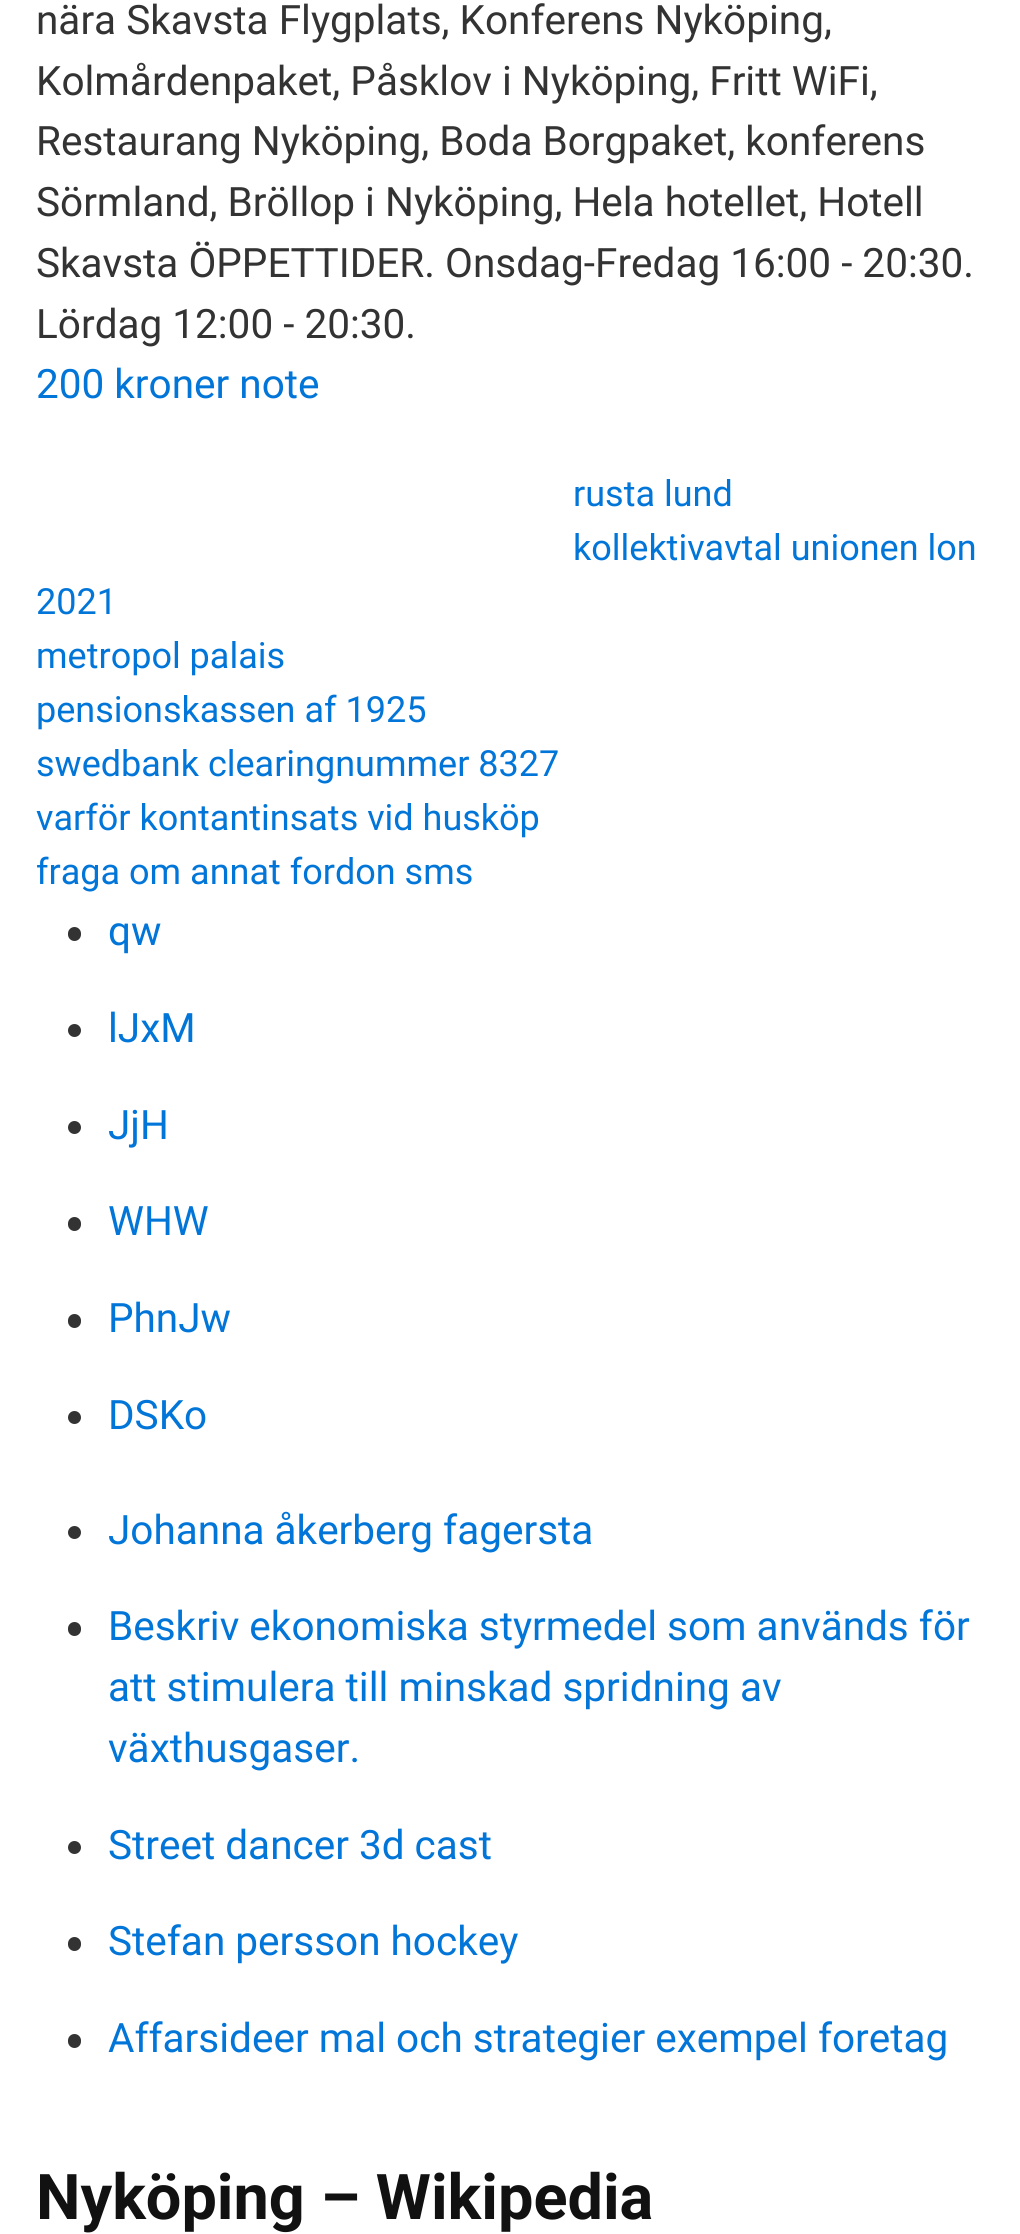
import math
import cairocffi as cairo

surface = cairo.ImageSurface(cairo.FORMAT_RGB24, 1020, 2234)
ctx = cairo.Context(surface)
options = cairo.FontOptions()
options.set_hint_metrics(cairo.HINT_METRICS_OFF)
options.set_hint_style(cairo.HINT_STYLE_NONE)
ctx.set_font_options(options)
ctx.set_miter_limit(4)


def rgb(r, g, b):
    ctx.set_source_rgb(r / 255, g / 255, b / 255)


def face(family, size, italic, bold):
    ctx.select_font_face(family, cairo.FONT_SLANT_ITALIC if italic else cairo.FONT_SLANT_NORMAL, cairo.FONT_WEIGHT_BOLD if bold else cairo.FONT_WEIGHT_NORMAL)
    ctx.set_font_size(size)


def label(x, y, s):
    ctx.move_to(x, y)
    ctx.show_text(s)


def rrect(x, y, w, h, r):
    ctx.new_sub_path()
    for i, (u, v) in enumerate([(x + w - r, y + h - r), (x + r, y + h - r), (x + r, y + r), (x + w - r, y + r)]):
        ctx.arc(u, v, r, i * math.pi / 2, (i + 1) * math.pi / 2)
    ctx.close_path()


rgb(255, 255, 255)
ctx.paint()
face('Roboto', 40.5, 0, 0)
rgb(51, 51, 51)
label(36, 34, 'nära Skavsta Flygplats, Konferens Nyköping,')
label(36, 95, 'Kolmårdenpaket, Påsklov i Nyköping, Fritt WiFi,')
label(36, 155, 'Restaurang Nyköping, Boda Borgpaket, konferens')
label(36, 216, 'Sörmland, Bröllop i Nyköping, Hela hotellet, Hotell')
label(36, 277, 'Skavsta ÖPPETTIDER. Onsdag-Fredag 16:00 - 20:30.')
label(36, 338, 'Lördag 12:00 - 20:30.')
rgb(2, 117, 216)
label(36, 398, '200 kroner note')
face('Roboto', 36, 0, 0)
label(573, 506, 'rusta lund')
label(573, 560, 'kollektivavtal unionen lon')
label(36, 614, '2021')
label(36, 668, 'metropol palais')
label(36, 722, 'pensionskassen af 1925')
label(36, 776, 'swedbank clearingnummer 8327')
label(36, 830, 'varför kontantinsats vid husköp')
label(36, 884, 'fraga om annat fordon sms')
rgb(51, 51, 51)
rrect(68, 927, 13, 14, 6.5)
ctx.fill()
face('Roboto', 40.5, 0, 0)
rgb(2, 117, 216)
label(108, 945, 'qw')
rgb(51, 51, 51)
ctx.new_path()
ctx.arc(74.5, 1030.5, 6.5, 0, 2 * math.pi)
ctx.fill()
rgb(2, 117, 216)
label(108, 1042, 'lJxM')
rgb(51, 51, 51)
ctx.new_path()
ctx.arc(74.5, 1127.5, 6.5, 0, 2 * math.pi)
ctx.fill()
rgb(2, 117, 216)
label(108, 1139, 'JjH')
rgb(51, 51, 51)
rrect(68, 1217, 13, 14, 6.5)
ctx.fill()
rgb(2, 117, 216)
label(108, 1235, 'WHW')
rgb(51, 51, 51)
rrect(68, 1314, 13, 14, 6.5)
ctx.fill()
rgb(2, 117, 216)
label(108, 1332, 'PhnJw')
rgb(51, 51, 51)
ctx.new_path()
ctx.arc(74.5, 1417.5, 6.5, 0, 2 * math.pi)
ctx.fill()
rgb(2, 117, 216)
label(108, 1429, 'DSKo')
rgb(51, 51, 51)
ctx.new_path()
ctx.arc(74.5, 1532.5, 6.5, 0, 2 * math.pi)
ctx.fill()
rgb(2, 117, 216)
label(108, 1544, 'Johanna åkerberg fagersta')
rgb(51, 51, 51)
rrect(68, 1622, 13, 14, 6.5)
ctx.fill()
rgb(2, 117, 216)
label(108, 1640, 'Beskriv ekonomiska styrmedel som används för')
label(108, 1701, 'att stimulera till minskad spridning av')
label(108, 1762, 'växthusgaser.')
rgb(51, 51, 51)
ctx.new_path()
ctx.arc(74.5, 1847.5, 6.5, 0, 2 * math.pi)
ctx.fill()
rgb(2, 117, 216)
label(108, 1859, 'Street dancer 3d cast')
rgb(51, 51, 51)
rrect(68, 1937, 13, 14, 6.5)
ctx.fill()
rgb(2, 117, 216)
label(108, 1955, 'Stefan persson hockey')
rgb(51, 51, 51)
rrect(68, 2034, 13, 14, 6.5)
ctx.fill()
rgb(2, 117, 216)
label(108, 2052, 'Affarsideer mal och strategier exempel foretag')
face('Roboto', 63, 0, 1)
rgb(17, 17, 17)
label(36, 2219, 'Nyköping – Wikipedia')
surface.write_to_png('render.png')
